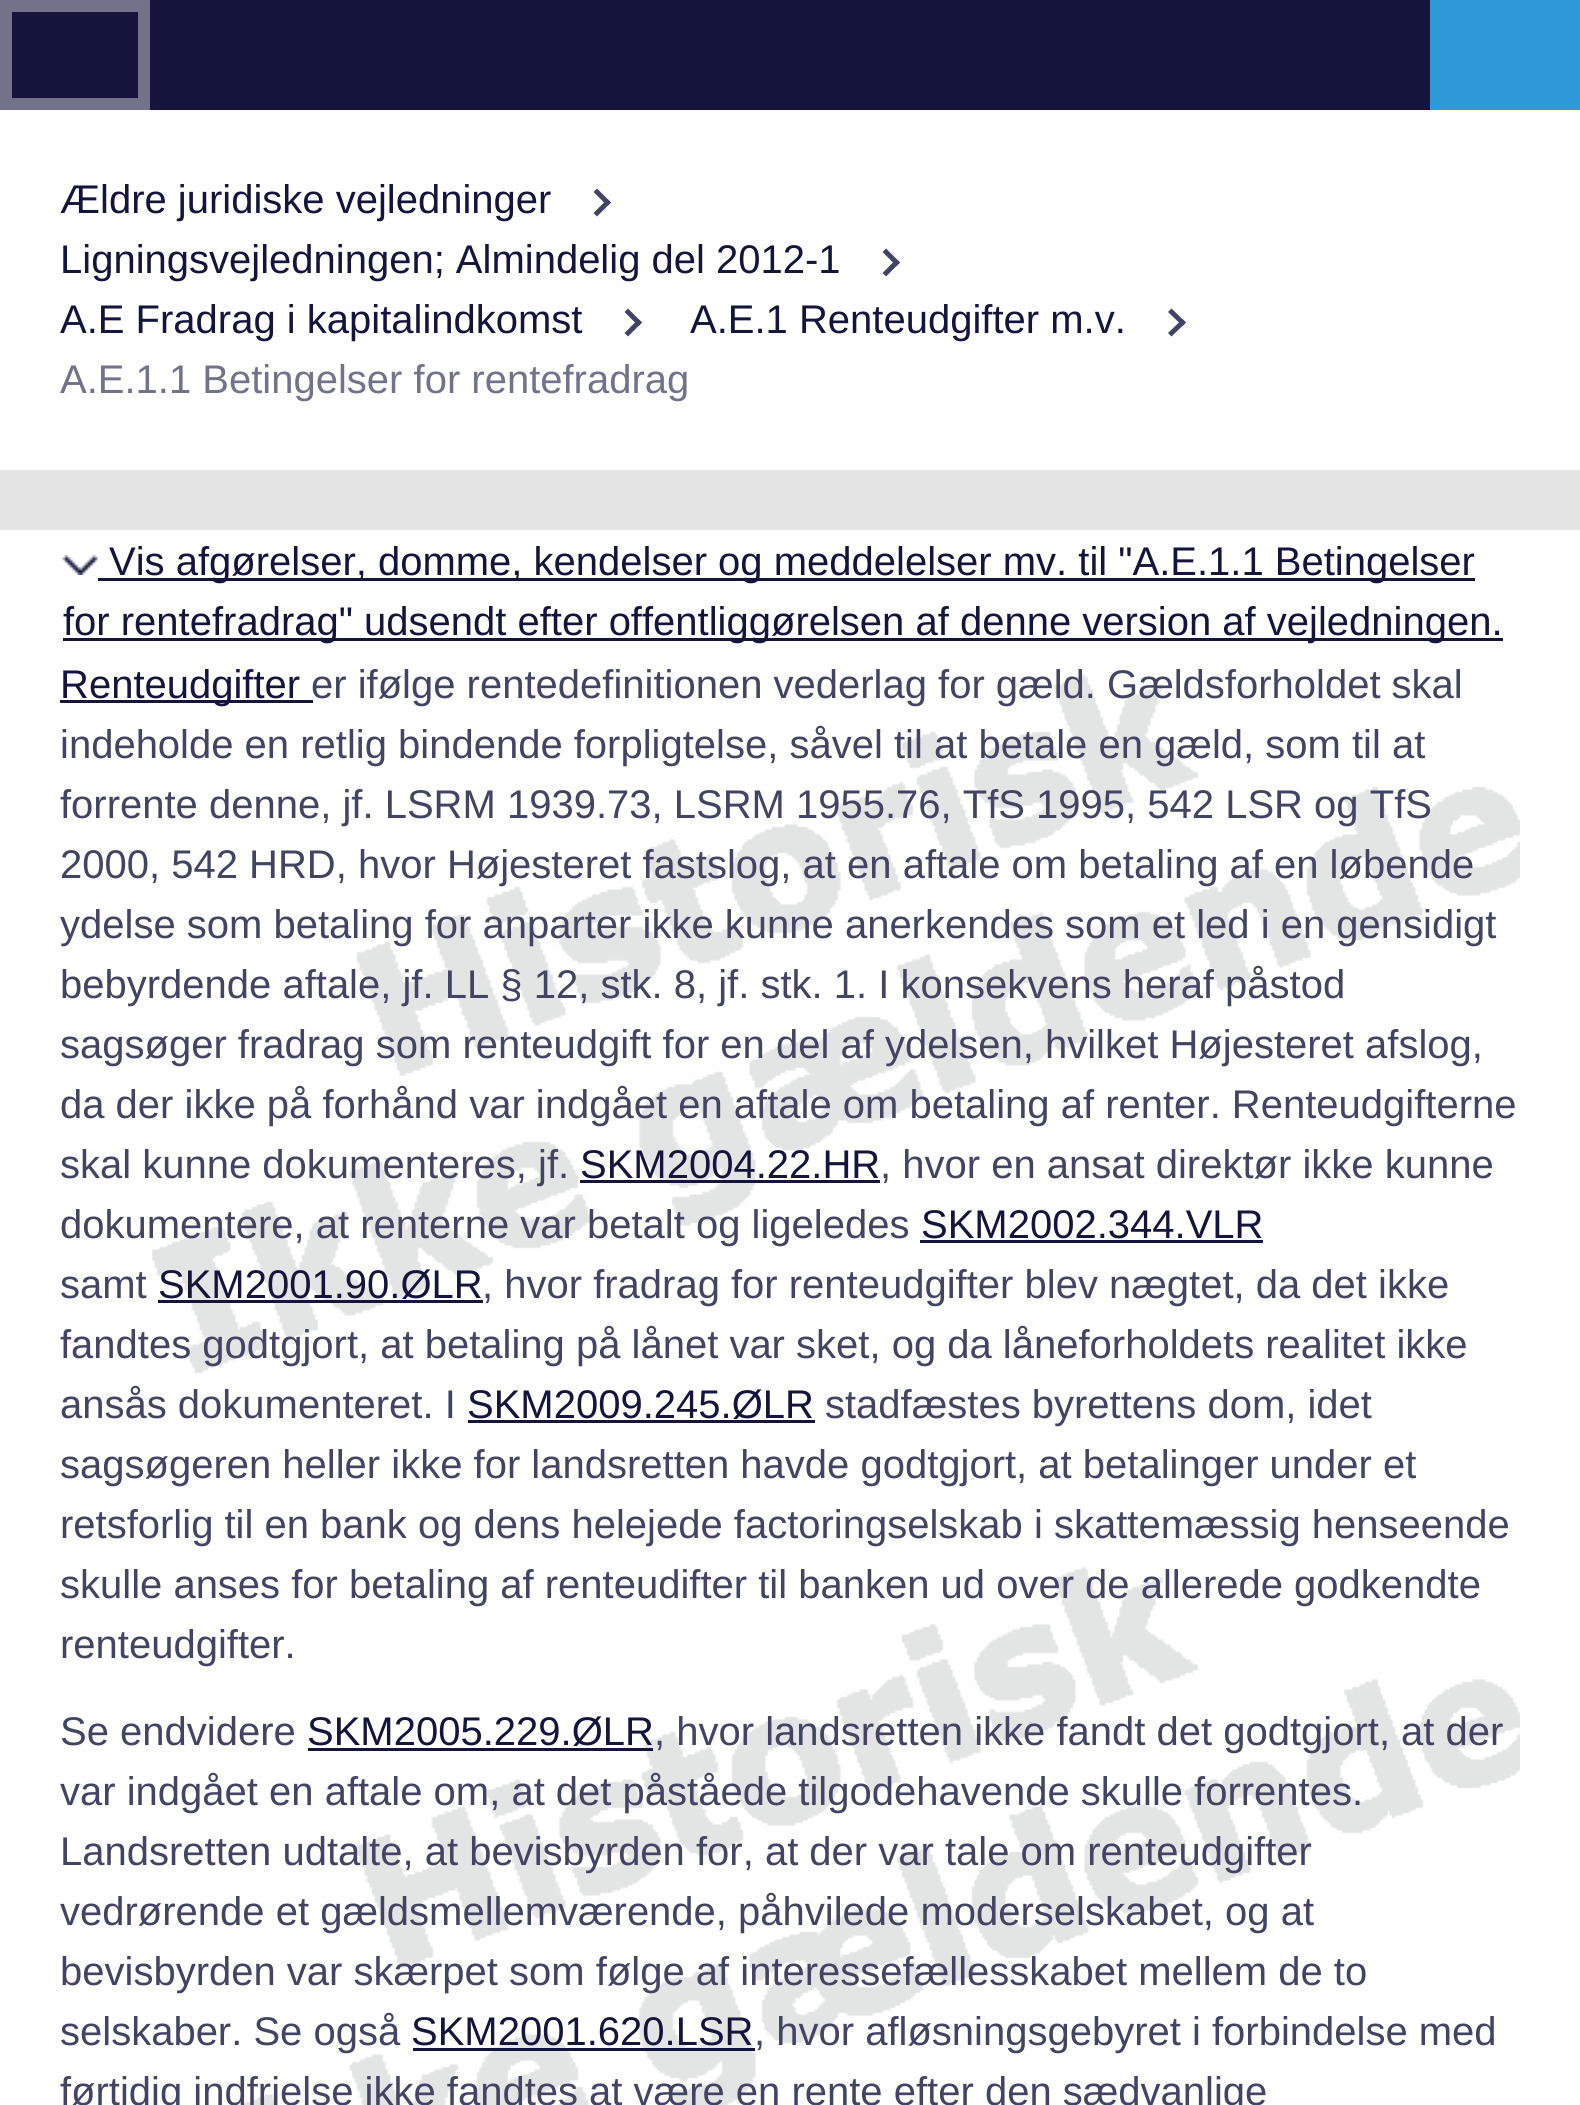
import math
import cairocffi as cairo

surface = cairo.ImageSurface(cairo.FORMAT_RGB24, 1580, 2105)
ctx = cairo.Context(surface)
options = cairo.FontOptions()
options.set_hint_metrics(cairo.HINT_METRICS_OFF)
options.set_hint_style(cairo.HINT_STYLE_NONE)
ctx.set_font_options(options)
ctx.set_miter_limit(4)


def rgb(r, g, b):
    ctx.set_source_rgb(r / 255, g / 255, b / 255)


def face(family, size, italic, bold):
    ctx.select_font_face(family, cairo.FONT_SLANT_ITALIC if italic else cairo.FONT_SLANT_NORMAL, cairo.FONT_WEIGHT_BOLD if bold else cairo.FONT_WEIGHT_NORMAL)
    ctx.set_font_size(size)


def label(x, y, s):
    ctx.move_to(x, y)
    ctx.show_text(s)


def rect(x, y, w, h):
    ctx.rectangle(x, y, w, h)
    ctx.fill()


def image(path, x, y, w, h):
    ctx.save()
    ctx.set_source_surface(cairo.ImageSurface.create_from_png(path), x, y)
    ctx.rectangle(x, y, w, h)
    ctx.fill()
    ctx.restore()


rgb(229, 229, 229)
ctx.paint()
rgb(20, 20, 60)
rect(12, 0, 1418, 110)
ctx.rectangle(6, 6, 138, 98)
rgb(114, 114, 138)
ctx.set_line_width(12)
ctx.stroke()
rgb(46, 153, 217)
rect(1430, 0, 150, 110)
rgb(255, 255, 255)
rect(0, 110, 1580, 360)
face('Liberation Sans', 40, 0, 0)
rgb(20, 20, 60)
label(60, 213, 'Ældre juridiske vejledninger')
rgb(67, 67, 99)
ctx.new_path()
ctx.move_to(597, 188.5)
ctx.line_to(611, 202.5)
ctx.line_to(607.5, 206)
ctx.line_to(593.5, 192)
ctx.close_path()
ctx.fill()
ctx.new_path()
ctx.move_to(607.5, 199)
ctx.line_to(611, 202.5)
ctx.line_to(597, 216.5)
ctx.line_to(593.5, 213)
ctx.close_path()
ctx.fill()
rgb(20, 20, 60)
label(60, 273, 'Ligningsvejledningen; Almindelig del 2012-1')
rgb(67, 67, 99)
ctx.new_path()
ctx.move_to(886, 248.5)
ctx.line_to(900, 262.5)
ctx.line_to(896.5, 266)
ctx.line_to(882.5, 252)
ctx.close_path()
ctx.fill()
ctx.new_path()
ctx.move_to(896.5, 259)
ctx.line_to(900, 262.5)
ctx.line_to(886, 276.5)
ctx.line_to(882.5, 273)
ctx.close_path()
ctx.fill()
rgb(20, 20, 60)
label(60, 333, 'A.E Fradrag i kapitalindkomst')
rgb(67, 67, 99)
ctx.new_path()
ctx.move_to(628, 308.5)
ctx.line_to(642, 322.5)
ctx.line_to(638.5, 326)
ctx.line_to(624.5, 312)
ctx.close_path()
ctx.fill()
ctx.new_path()
ctx.move_to(638.5, 319)
ctx.line_to(642, 322.5)
ctx.line_to(628, 336.5)
ctx.line_to(624.5, 333)
ctx.close_path()
ctx.fill()
rgb(20, 20, 60)
label(690, 333, 'A.E.1 Renteudgifter m.v.')
rgb(67, 67, 99)
ctx.new_path()
ctx.move_to(1171.5, 308.5)
ctx.line_to(1186, 322.5)
ctx.line_to(1182.5, 326)
ctx.line_to(1168, 312)
ctx.close_path()
ctx.fill()
ctx.new_path()
ctx.move_to(1182.5, 319)
ctx.line_to(1186, 322.5)
ctx.line_to(1171.5, 336.5)
ctx.line_to(1168, 333)
ctx.close_path()
ctx.fill()
rgb(114, 114, 138)
label(60, 393, 'A.E.1.1 Betingelser for rentefradrag')
rgb(255, 255, 255)
rect(0, 530, 1580, 1575)
image('image0.png', 152, 674, 1368, 1431)
image('image1.png', 152, 674, 1368, 1431)
image('image2.png', 62, 555, 36, 20)
rgb(20, 20, 60)
rect(98, 578, 1377, 3)
label(109, 575, 'Vis afgørelser, domme, kendelser og meddelelser mv. til "A.E.1.1 Betingelser')
rect(63, 638, 1440, 3)
label(63, 635, 'for rentefradrag" udsendt efter offentliggørelsen af denne version af vejledningen.')
rect(60, 700, 253, 3)
label(60, 698, 'Renteudgifter')
rgb(67, 67, 99)
label(311, 698, 'er ifølge rentedefinitionen vederlag for gæld. Gældsforholdet skal')
label(60, 758, 'indeholde en retlig bindende forpligtelse, såvel til at betale en gæld, som til at')
label(60, 818, 'forrente denne, jf. LSRM 1939.73, LSRM 1955.76, TfS 1995, 542 LSR og TfS')
label(60, 878, '2000, 542 HRD, hvor Højesteret fastslog, at en aftale om betaling af en løbende')
label(60, 938, 'ydelse som betaling for anparter ikke kunne anerkendes som et led i en gensidigt')
label(60, 998, 'bebyrdende aftale, jf. LL § 12, stk. 8, jf. stk. 1. I konsekvens heraf påstod')
label(60, 1058, 'sagsøger fradrag som renteudgift for en del af ydelsen, hvilket Højesteret afslog,')
label(60, 1118, 'da der ikke på forhånd var indgået en aftale om betaling af renter. Renteudgifterne')
label(60, 1178, 'skal kunne dokumenteres, jf.')
rgb(20, 20, 60)
label(580, 1178, 'SKM2004.22.HR')
rect(580, 1180, 300, 3)
rgb(67, 67, 99)
label(880, 1178, ', hvor en ansat direktør ikke kunne')
label(60, 1238, 'dokumentere, at renterne var betalt og ligeledes')
rgb(20, 20, 60)
label(921, 1238, 'SKM2002.344.VLR')
rect(920, 1240, 343, 3)
rgb(67, 67, 99)
label(60, 1298, 'samt')
rgb(20, 20, 60)
label(158, 1298, 'SKM2001.90.ØLR')
rect(158, 1300, 325, 3)
rgb(67, 67, 99)
label(482, 1298, ', hvor fradrag for renteudgifter blev nægtet, da det ikke')
label(60, 1358, 'fandtes godtgjort, at betaling på lånet var sket, og da låneforholdets realitet ikke')
label(60, 1418, 'ansås dokumenteret. I')
rgb(20, 20, 60)
label(467, 1418, 'SKM2009.245.ØLR')
rect(468, 1420, 347, 3)
rgb(67, 67, 99)
label(825, 1418, 'stadfæstes byrettens dom, idet')
label(60, 1478, 'sagsøgeren heller ikke for landsretten havde godtgjort, at betalinger under et')
label(60, 1538, 'retsforlig til en bank og dens helejede factoringselskab i skattemæssig henseende')
label(60, 1598, 'skulle anses for betaling af renteudifter til banken ud over de allerede godkendte')
label(60, 1658, 'renteudgifter.')
label(60, 1745, 'Se endvidere')
rgb(20, 20, 60)
label(307, 1745, 'SKM2005.229.ØLR')
rect(308, 1748, 345, 3)
rgb(67, 67, 99)
label(654, 1745, ', hvor landsretten ikke fandt det godtgjort, at der')
label(60, 1805, 'var indgået en aftale om, at det påståede tilgodehavende skulle forrentes.')
label(60, 1865, 'Landsretten udtalte, at bevisbyrden for, at der var tale om renteudgifter')
label(60, 1925, 'vedrørende et gældsmellemværende, påhvilede moderselskabet, og at')
label(60, 1985, 'bevisbyrden var skærpet som følge af interessefællesskabet mellem de to')
label(60, 2045, 'selskaber. Se også')
rgb(20, 20, 60)
label(411, 2045, 'SKM2001.620.LSR')
rect(413, 2048, 342, 3)
rgb(67, 67, 99)
label(754, 2045, ', hvor afløsningsgebyret i forbindelse med')
label(60, 2105, 'førtidig indfrielse ikke fandtes at være en rente efter den sædvanlige')
surface.write_to_png('render.png')
